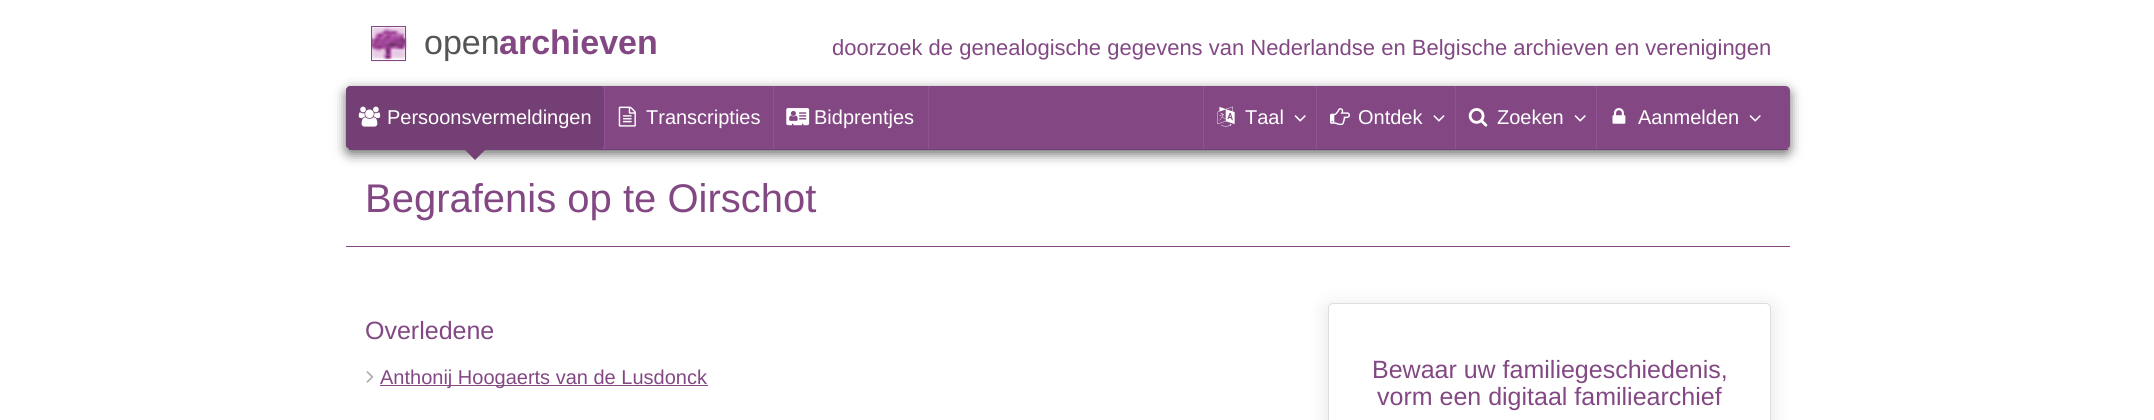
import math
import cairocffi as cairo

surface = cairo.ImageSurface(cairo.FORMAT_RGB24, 2154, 420)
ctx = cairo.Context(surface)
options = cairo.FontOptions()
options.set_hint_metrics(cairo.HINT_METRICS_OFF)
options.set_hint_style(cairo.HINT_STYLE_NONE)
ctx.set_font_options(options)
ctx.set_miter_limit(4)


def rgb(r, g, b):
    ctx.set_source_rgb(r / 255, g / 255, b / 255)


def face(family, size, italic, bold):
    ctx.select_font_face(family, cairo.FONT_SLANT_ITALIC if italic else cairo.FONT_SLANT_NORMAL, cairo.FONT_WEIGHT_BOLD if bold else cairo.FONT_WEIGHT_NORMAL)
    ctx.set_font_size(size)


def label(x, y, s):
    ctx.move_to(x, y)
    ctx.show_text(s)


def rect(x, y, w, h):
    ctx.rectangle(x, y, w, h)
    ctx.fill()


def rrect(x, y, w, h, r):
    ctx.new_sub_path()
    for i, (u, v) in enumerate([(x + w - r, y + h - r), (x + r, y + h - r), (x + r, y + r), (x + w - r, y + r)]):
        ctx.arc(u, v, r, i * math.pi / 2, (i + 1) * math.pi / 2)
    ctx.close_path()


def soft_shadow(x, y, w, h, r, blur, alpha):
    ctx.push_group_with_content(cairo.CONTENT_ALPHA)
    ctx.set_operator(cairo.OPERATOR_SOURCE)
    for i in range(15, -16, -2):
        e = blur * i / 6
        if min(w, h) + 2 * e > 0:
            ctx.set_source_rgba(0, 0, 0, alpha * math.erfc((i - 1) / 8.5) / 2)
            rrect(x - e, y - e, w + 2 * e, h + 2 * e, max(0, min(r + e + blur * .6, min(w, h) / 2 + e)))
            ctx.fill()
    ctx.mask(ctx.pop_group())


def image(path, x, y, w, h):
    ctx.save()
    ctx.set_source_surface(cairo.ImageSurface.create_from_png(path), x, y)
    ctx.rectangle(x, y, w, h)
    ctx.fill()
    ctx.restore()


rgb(255, 255, 255)
ctx.paint()
image('image0.png', 371, 26, 36, 36)
ctx.rectangle(371.5, 26.5, 34, 34)
rgb(131, 72, 132)
ctx.set_line_width(1)
ctx.stroke()
face('Liberation Sans', 34, 0, 0)
rgb(85, 85, 85)
label(424, 54, 'open')
face('Liberation Sans', 34, 0, 1)
rgb(131, 72, 132)
label(499, 54, 'archieven')
face('Liberation Sans', 22, 0, 0)
label(832, 55, 'doorzoek de genealogische gegevens van Nederlandse en Belgische archieven en verenigingen')
rgb(50, 50, 50)
soft_shadow(346, 90, 1444, 64, 5, 6, 0.73)
rgb(131, 72, 132)
ctx.new_path()
ctx.move_to(351, 86)
ctx.line_to(1785, 86)
ctx.curve_to(1788, 86, 1790, 88, 1790, 91)
ctx.line_to(1790, 145)
ctx.curve_to(1790, 147, 1788, 149, 1785, 149)
ctx.line_to(351, 149)
ctx.curve_to(348, 149, 346, 147, 346, 145)
ctx.line_to(346, 91)
ctx.curve_to(346, 88, 348, 86, 351, 86)
ctx.close_path()
ctx.fill()
rgb(115, 63, 116)
rect(349, 149, 1439, 1)
rgb(131, 72, 132)
rrect(346, 86, 1425, 63, 5)
ctx.fill()
rgb(115, 63, 116)
rrect(346, 86, 258, 63, 5)
ctx.fill()
image('image1.png', 358, 106, 23, 21)
face('Liberation Sans', 20, 0, 0)
rgb(255, 255, 255)
label(387, 124, 'Persoonsvermeldingen')
rgb(115, 63, 116)
ctx.new_path()
ctx.move_to(465, 150)
ctx.line_to(485, 150)
ctx.line_to(475, 160)
ctx.close_path()
ctx.fill()
rgb(147, 81, 149)
rect(604, 86, 1, 63)
image('image2.png', 618, 106, 18, 21)
rgb(255, 255, 255)
label(646, 124, 'Transcripties')
rgb(147, 81, 149)
rect(773, 86, 1, 63)
image('image3.png', 786, 108, 24, 18)
rgb(255, 255, 255)
label(814, 124, 'Bidprentjes')
rgb(147, 81, 149)
rect(928, 86, 1, 63)
rect(1203, 86, 1, 63)
image('image4.png', 1217, 106, 18, 21)
rgb(255, 255, 255)
label(1245, 124, 'Taal')
image('image5.png', 1294, 115, 12, 7)
rgb(147, 81, 149)
rect(1316, 86, 1, 63)
image('image6.png', 1330, 108, 20, 18)
rgb(255, 255, 255)
label(1358, 124, 'Ontdek')
image('image7.png', 1433, 115, 12, 7)
rgb(147, 81, 149)
rect(1455, 86, 1, 63)
image('image8.png', 1468, 108, 20, 19)
rgb(255, 255, 255)
label(1497, 124, 'Zoeken')
image('image5.png', 1574, 115, 12, 7)
rgb(147, 81, 149)
rect(1596, 86, 1, 63)
image('image9.png', 1612, 108, 14, 16)
rgb(255, 255, 255)
label(1638, 124, 'Aanmelden')
image('image5.png', 1749, 115, 12, 7)
rgb(131, 72, 132)
rect(346, 246, 1444, 1)
face('Liberation Sans', 40, 0, 0)
label(365, 212, 'Begrafenis op te Oirschot')
face('Liberation Sans', 25, 0, 0)
label(365, 339, 'Overledene')
image('image10.png', 366, 371, 8, 12)
rect(380, 385, 328, 1)
face('Liberation Sans', 20, 0, 0)
label(380, 384, 'Anthonij Hoogaerts van de Lusdonck')
ctx.save()
ctx.set_fill_rule(cairo.FILL_RULE_EVEN_ODD)
ctx.new_path()
ctx.move_to(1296, 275)
ctx.line_to(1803, 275)
ctx.line_to(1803, 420)
ctx.line_to(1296, 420)
ctx.close_path()
ctx.move_to(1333, 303)
ctx.line_to(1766, 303)
ctx.curve_to(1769, 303, 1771, 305, 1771, 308)
ctx.line_to(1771, 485)
ctx.curve_to(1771, 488, 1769, 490, 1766, 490)
ctx.line_to(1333, 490)
ctx.curve_to(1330, 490, 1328, 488, 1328, 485)
ctx.line_to(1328, 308)
ctx.curve_to(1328, 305, 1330, 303, 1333, 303)
ctx.close_path()
ctx.clip()
rgb(0, 0, 0)
soft_shadow(1326, 305, 447, 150, 6, 9.5, 0.1)
ctx.restore()
rrect(1328.5, 303.5, 442, 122, 4.5)
rgb(221, 221, 221)
ctx.stroke()
face('Liberation Sans', 25, 0, 0)
rgb(131, 72, 132)
label(1372, 378, 'Bewaar uw familiegeschiedenis,')
label(1377, 405, 'vorm een digitaal familiearchief')
surface.write_to_png('render.png')
